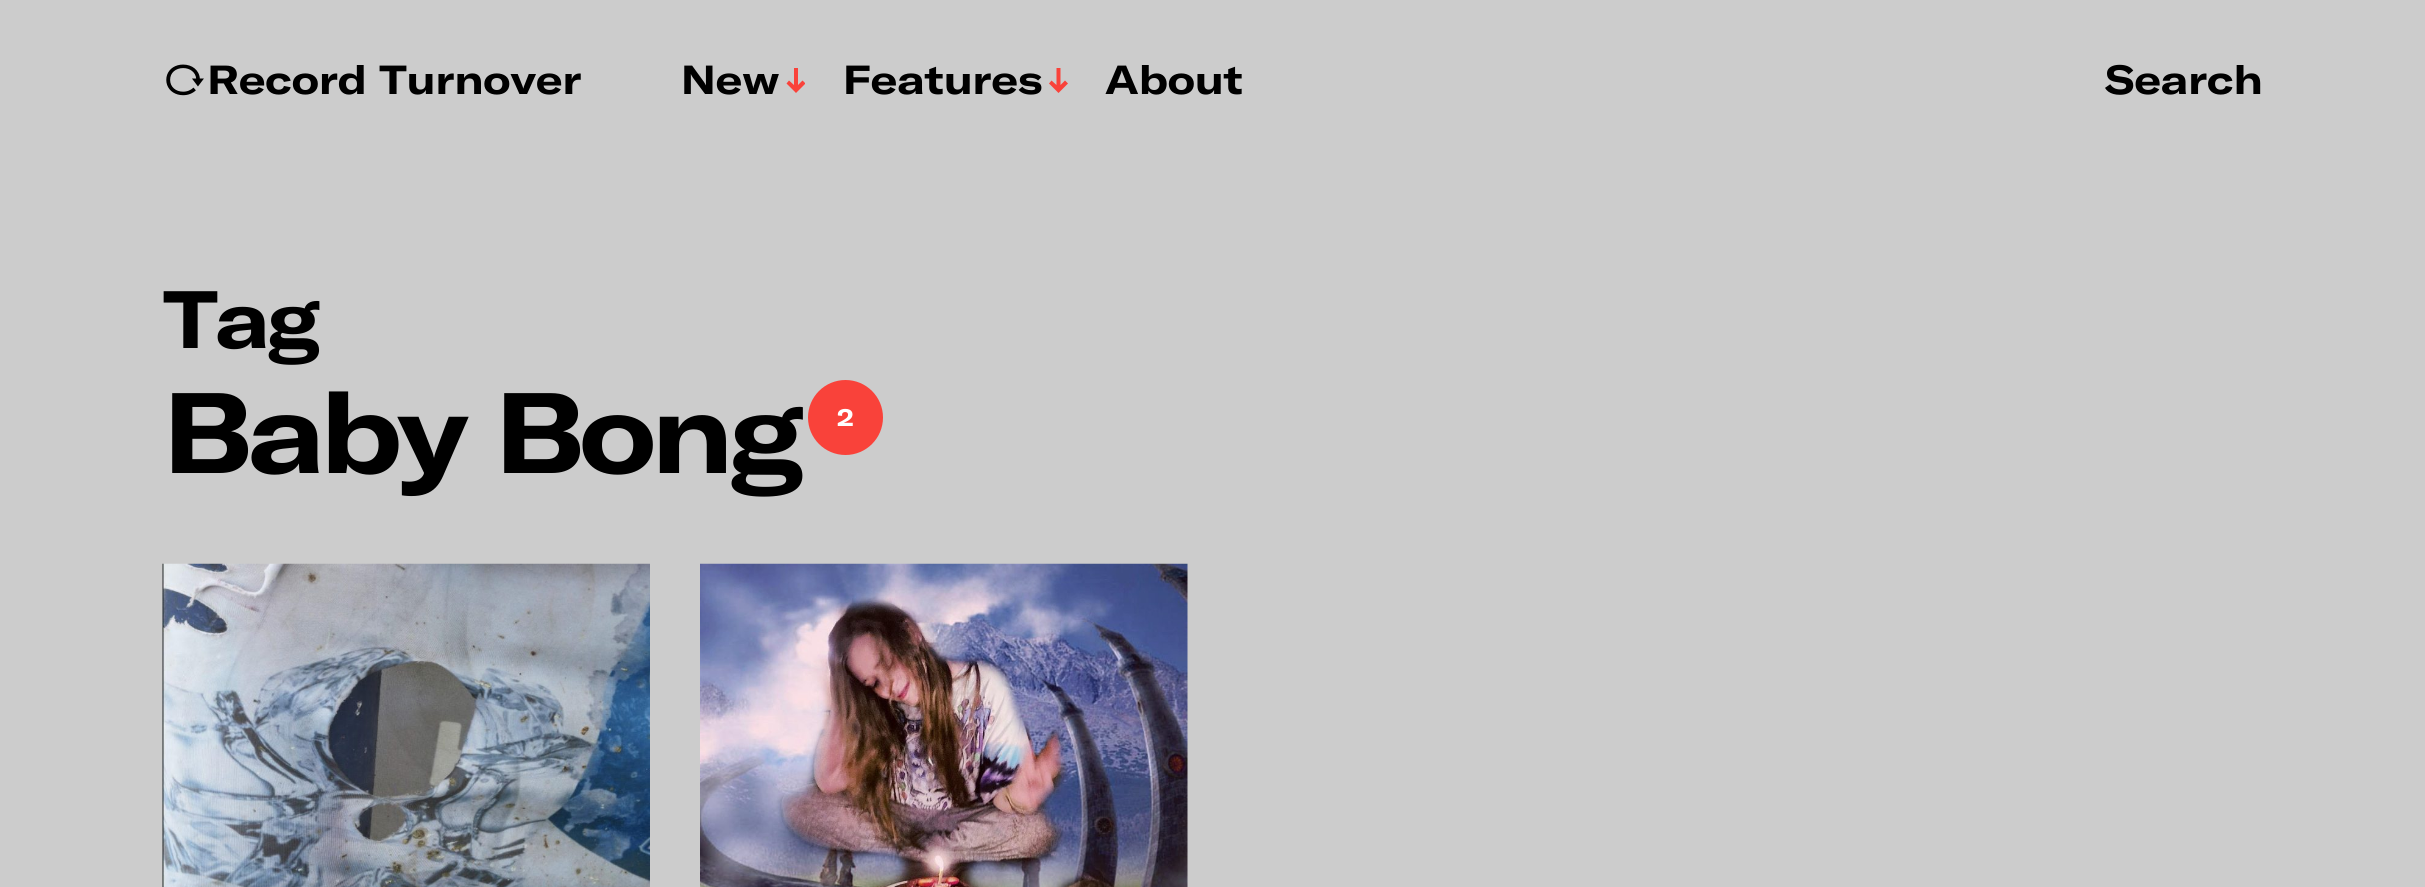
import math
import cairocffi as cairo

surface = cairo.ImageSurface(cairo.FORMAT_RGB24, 2425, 887)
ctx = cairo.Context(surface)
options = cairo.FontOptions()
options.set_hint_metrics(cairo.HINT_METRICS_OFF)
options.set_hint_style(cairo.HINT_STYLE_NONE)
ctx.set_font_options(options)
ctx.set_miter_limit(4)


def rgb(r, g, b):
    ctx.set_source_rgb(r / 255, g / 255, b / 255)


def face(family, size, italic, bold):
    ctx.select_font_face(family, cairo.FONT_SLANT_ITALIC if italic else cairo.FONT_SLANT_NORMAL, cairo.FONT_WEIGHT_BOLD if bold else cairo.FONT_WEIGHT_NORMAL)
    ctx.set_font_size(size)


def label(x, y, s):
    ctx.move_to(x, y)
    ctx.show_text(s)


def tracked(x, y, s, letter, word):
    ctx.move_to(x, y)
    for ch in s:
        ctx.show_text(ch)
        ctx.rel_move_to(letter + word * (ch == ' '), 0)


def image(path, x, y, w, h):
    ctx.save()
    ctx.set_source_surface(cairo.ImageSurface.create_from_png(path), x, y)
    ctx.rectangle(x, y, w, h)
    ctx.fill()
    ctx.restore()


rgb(204, 204, 204)
ctx.paint()
face('GT America', 40, 0, 1)
rgb(0, 0, 0)
label(163, 94, '↻Record Turnover')
label(681, 94, 'New')
ctx.save()
ctx.rectangle(786, 68, 19, 26)
ctx.clip()
rgb(249, 66, 58)
ctx.set_fill_rule(cairo.FILL_RULE_EVEN_ODD)
ctx.new_path()
ctx.move_to(794, 85)
ctx.line_to(794, 67.5)
ctx.line_to(798, 67.5)
ctx.line_to(798, 85)
ctx.line_to(802.5, 80.5)
ctx.line_to(805.5, 83.5)
ctx.line_to(796, 93)
ctx.line_to(786.5, 83.5)
ctx.line_to(789, 80.5)
ctx.close_path()
ctx.fill()
ctx.restore()
label(843, 94, 'Features')
ctx.save()
ctx.rectangle(1049, 68, 19, 26)
ctx.clip()
rgb(249, 66, 58)
ctx.set_fill_rule(cairo.FILL_RULE_EVEN_ODD)
ctx.new_path()
ctx.move_to(1056.5, 85)
ctx.line_to(1056.5, 67.5)
ctx.line_to(1060.5, 67.5)
ctx.line_to(1060.5, 85)
ctx.line_to(1065, 80.5)
ctx.line_to(1068, 83.5)
ctx.line_to(1058.5, 93)
ctx.line_to(1049, 83.5)
ctx.line_to(1051.5, 80.5)
ctx.close_path()
ctx.fill()
ctx.restore()
label(1105, 94, 'About')
label(2105, 94, 'Search')
face('GT America', 80, 0, 1)
tracked(163, 348, 'Tag', -3, 0)
face('GT America', 112.5, 0, 1)
tracked(163, 473, 'Baby Bong', -4.5, 0)
rgb(249, 66, 58)
ctx.new_path()
ctx.arc(845.5, 417.5, 37.5, 0, 2 * math.pi)
ctx.fill()
face('GT America', 24, 0, 1)
rgb(255, 255, 255)
label(837, 426, '2')
image('image0.png', 162, 563, 488, 324)
image('image1.png', 700, 563, 488, 324)
surface.write_to_png('render.png')
